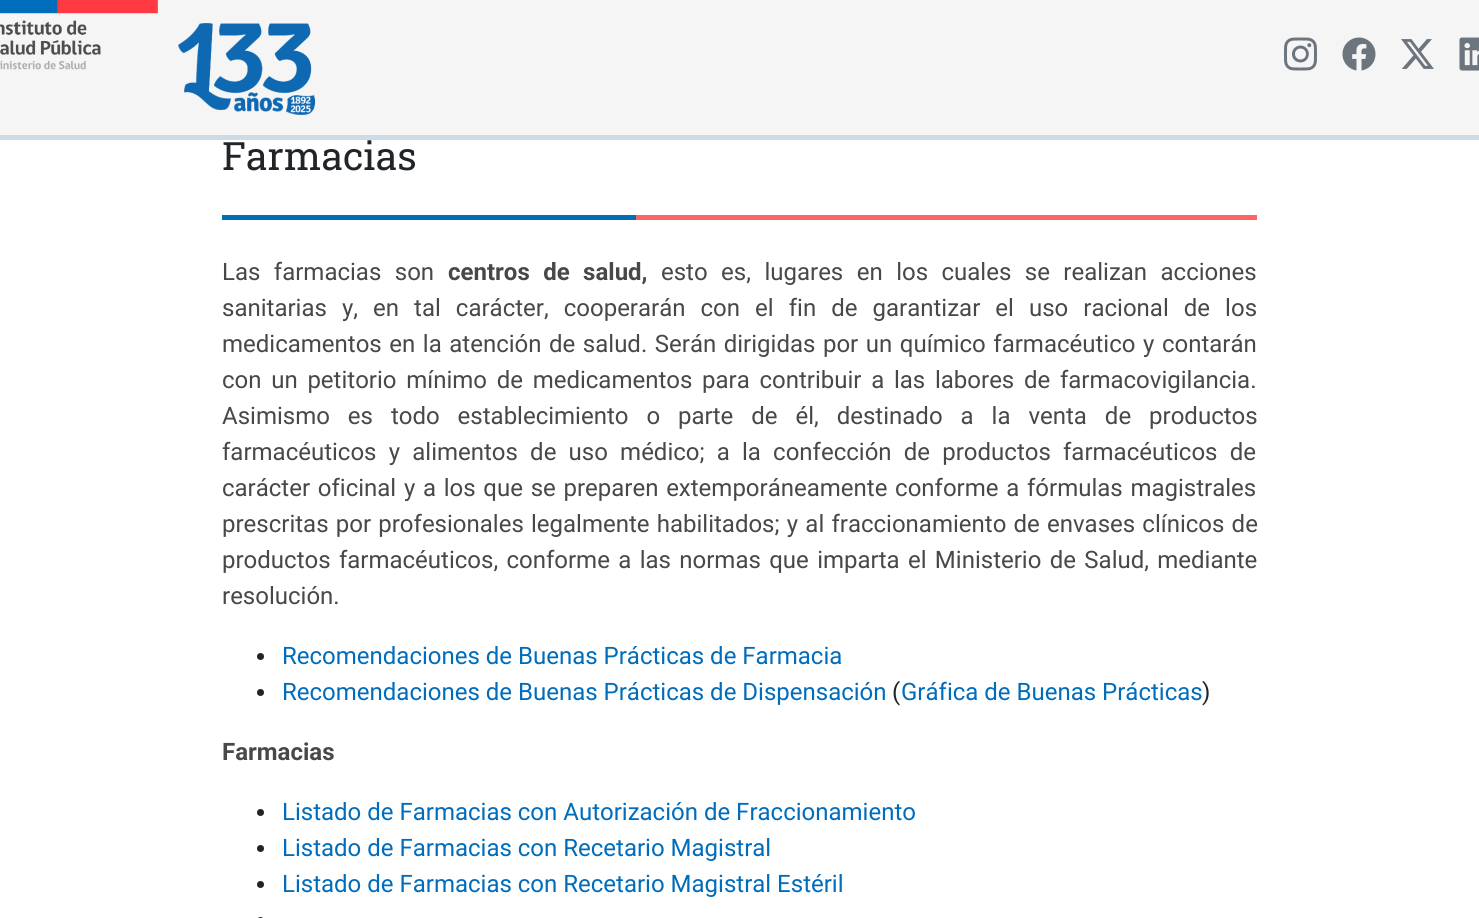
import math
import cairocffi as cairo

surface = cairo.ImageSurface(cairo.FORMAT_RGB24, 1479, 918)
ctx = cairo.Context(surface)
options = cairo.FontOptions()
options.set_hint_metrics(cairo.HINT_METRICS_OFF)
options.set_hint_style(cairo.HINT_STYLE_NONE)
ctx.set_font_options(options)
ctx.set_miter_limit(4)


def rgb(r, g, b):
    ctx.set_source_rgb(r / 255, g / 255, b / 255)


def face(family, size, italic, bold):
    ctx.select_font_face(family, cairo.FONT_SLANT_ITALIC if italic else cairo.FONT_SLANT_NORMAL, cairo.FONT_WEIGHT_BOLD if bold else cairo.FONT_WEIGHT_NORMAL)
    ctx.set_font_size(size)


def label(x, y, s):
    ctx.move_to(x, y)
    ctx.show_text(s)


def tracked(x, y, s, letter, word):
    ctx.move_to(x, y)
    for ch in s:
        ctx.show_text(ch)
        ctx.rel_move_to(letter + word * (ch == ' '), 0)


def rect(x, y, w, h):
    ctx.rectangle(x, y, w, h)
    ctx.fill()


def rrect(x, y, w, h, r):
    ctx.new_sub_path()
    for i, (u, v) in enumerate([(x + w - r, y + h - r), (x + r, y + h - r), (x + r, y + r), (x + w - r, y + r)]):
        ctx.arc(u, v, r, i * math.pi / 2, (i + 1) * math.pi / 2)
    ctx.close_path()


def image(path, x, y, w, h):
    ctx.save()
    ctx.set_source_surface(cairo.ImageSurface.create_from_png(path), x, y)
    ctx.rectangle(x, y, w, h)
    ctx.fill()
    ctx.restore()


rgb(255, 255, 255)
ctx.paint()
rgb(245, 245, 245)
rect(0, 0, 1479, 135)
rgb(206, 218, 228)
rect(0, 135, 1479, 5)
image('image0.png', 0, 0, 158, 70)
image('image1.png', 178, 23, 138, 92)
image('image2.png', 1284, 37, 33, 34)
image('image3.png', 1342, 37, 34, 34)
image('image4.png', 1401, 39, 33, 30)
image('image5.png', 1459, 37, 20, 34)
face('Roboto Slab', 39, 0, 0)
rgb(33, 37, 41)
label(222, 170, 'Farmacias')
rgb(0, 111, 179)
rect(222, 215, 414, 5)
rgb(254, 101, 101)
rect(636, 215, 621, 5)
face('Roboto', 24, 0, 0)
rgb(72, 72, 72)
tracked(222, 280, 'Las farmacias son', 0, 7.5)
face('Roboto', 24, 0, 1)
tracked(448, 280, 'centros de salud,', 0, 7.5)
face('Roboto', 24, 0, 0)
tracked(661, 280, 'esto es, lugares en los cuales se realizan acciones', 0, 7.5)
tracked(222, 316, 'sanitarias y, en tal carácter, cooperarán con el fin de garantizar el uso racional de los', 0, 9.1)
tracked(222, 352, 'medicamentos en la atención de salud. Serán dirigidas por un químico farmacéutico y contarán', 0, 1.6)
tracked(222, 388, 'con un petitorio mínimo de medicamentos para contribuir a las labores de farmacovigilancia.', 0, 3.75)
tracked(222, 424, 'Asimismo es todo establecimiento o parte de él, destinado a la venta de productos', 0, 12)
tracked(222, 460, 'farmacéuticos y alimentos de uso médico; a la confección de productos farmacéuticos de', 0, 6.25)
tracked(222, 496, 'carácter oficinal y a los que se preparen extemporáneamente conforme a fórmulas magistrales', 0, 1.75)
tracked(222, 532, 'prescritas por profesionales legalmente habilitados; y al fraccionamiento de envases clínicos de', 0, 1.25)
tracked(222, 568, 'productos farmacéuticos, conforme a las normas que imparta el Ministerio de Salud, mediante', 0, 2.4)
label(222, 604, 'resolución.')
rgb(33, 37, 41)
ctx.new_path()
ctx.arc(260.5, 656.5, 3.5, 0, 2 * math.pi)
ctx.fill()
rgb(0, 108, 188)
label(282, 664, 'Recomendaciones de Buenas Prácticas de Farmacia')
rgb(33, 37, 41)
ctx.new_path()
ctx.arc(260.5, 692.5, 3.5, 0, 2 * math.pi)
ctx.fill()
rgb(0, 108, 188)
label(282, 700, 'Recomendaciones de Buenas Prácticas de Dispensación')
rgb(33, 37, 41)
label(892, 700, '(')
rgb(0, 108, 188)
label(901, 700, 'Gráfica de Buenas Prácticas')
rgb(33, 37, 41)
label(1202, 700, ')')
face('Roboto', 24, 0, 1)
rgb(72, 72, 72)
label(222, 760, 'Farmacias')
rgb(33, 37, 41)
ctx.new_path()
ctx.arc(260.5, 812.5, 3.5, 0, 2 * math.pi)
ctx.fill()
face('Roboto', 24, 0, 0)
rgb(0, 108, 188)
label(282, 820, 'Listado de Farmacias con Autorización de Fraccionamiento')
rgb(33, 37, 41)
ctx.new_path()
ctx.arc(260.5, 848.5, 3.5, 0, 2 * math.pi)
ctx.fill()
rgb(0, 108, 188)
label(282, 856, 'Listado de Farmacias con Recetario Magistral')
rgb(33, 37, 41)
ctx.new_path()
ctx.arc(260.5, 884.5, 3.5, 0, 2 * math.pi)
ctx.fill()
rgb(0, 108, 188)
label(282, 892, 'Listado de Farmacias con Recetario Magistral Estéril')
rgb(33, 37, 41)
rrect(257, 917, 7, 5, 3.5)
ctx.fill()
surface.write_to_png('render.png')
